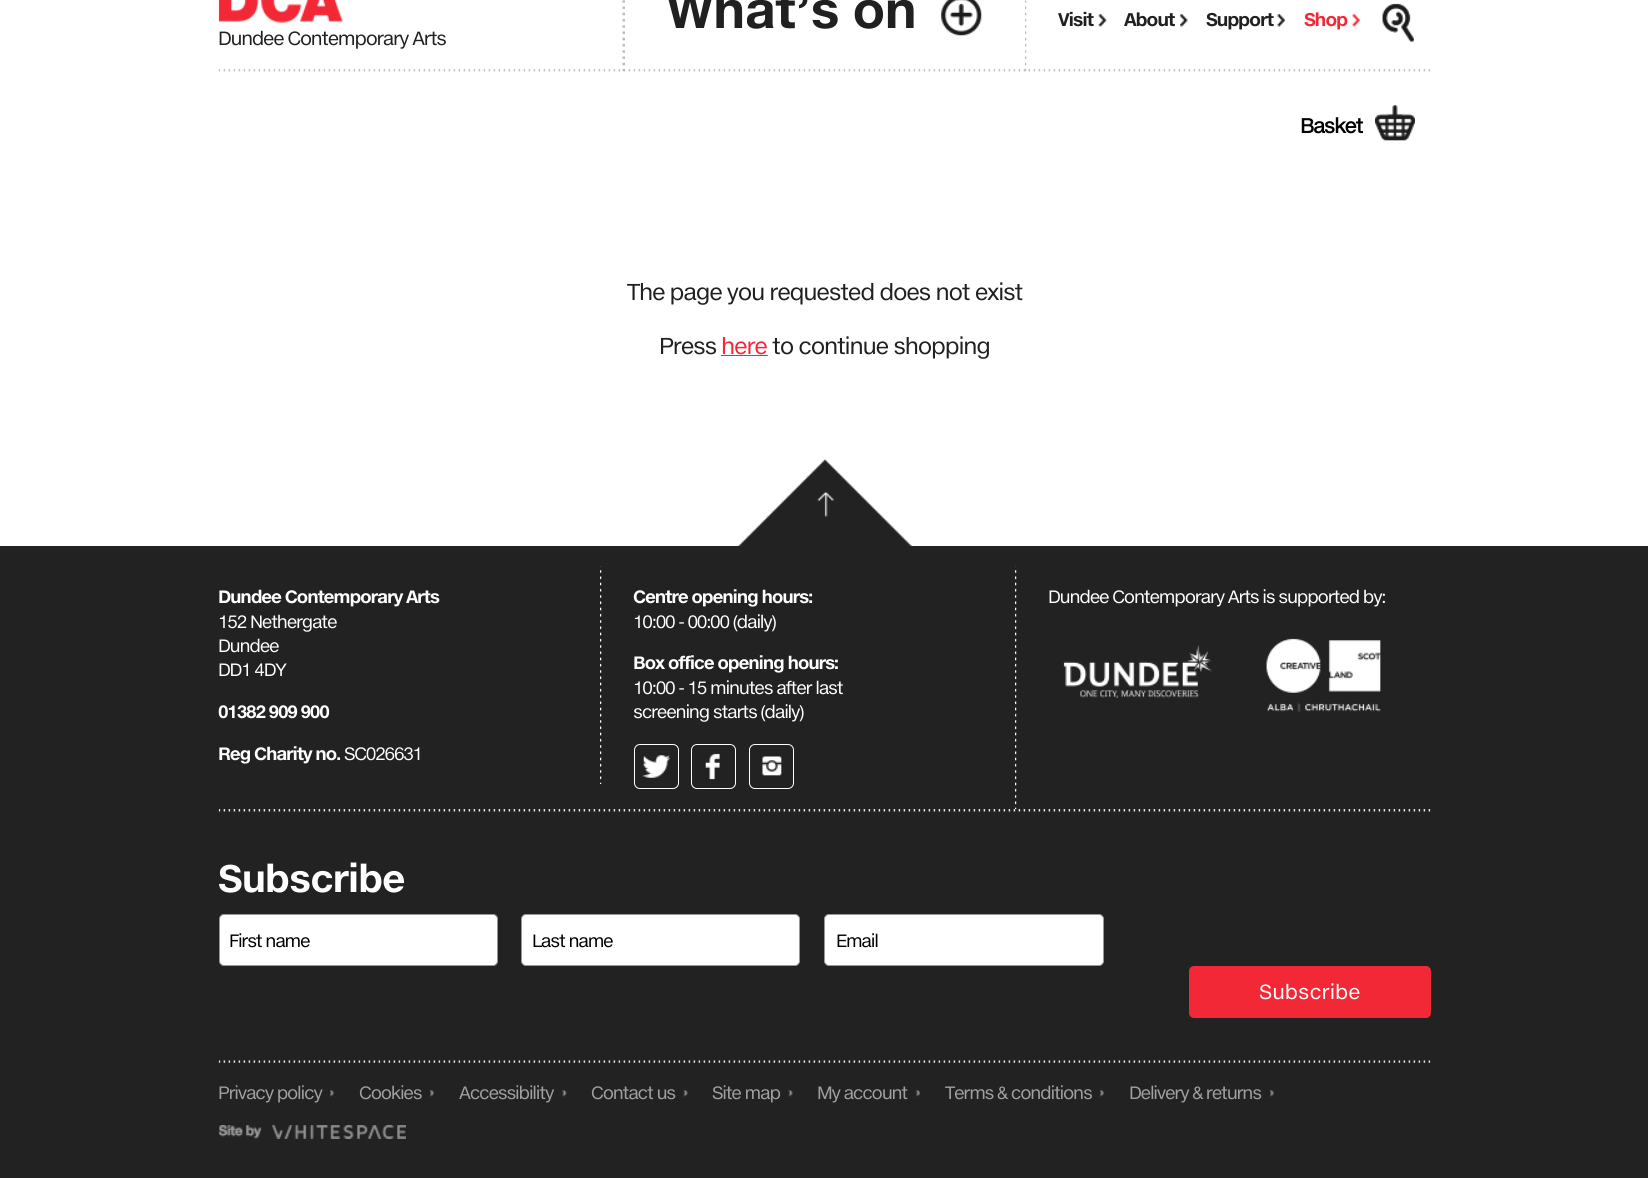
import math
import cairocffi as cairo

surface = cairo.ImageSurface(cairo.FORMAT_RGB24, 1648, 1178)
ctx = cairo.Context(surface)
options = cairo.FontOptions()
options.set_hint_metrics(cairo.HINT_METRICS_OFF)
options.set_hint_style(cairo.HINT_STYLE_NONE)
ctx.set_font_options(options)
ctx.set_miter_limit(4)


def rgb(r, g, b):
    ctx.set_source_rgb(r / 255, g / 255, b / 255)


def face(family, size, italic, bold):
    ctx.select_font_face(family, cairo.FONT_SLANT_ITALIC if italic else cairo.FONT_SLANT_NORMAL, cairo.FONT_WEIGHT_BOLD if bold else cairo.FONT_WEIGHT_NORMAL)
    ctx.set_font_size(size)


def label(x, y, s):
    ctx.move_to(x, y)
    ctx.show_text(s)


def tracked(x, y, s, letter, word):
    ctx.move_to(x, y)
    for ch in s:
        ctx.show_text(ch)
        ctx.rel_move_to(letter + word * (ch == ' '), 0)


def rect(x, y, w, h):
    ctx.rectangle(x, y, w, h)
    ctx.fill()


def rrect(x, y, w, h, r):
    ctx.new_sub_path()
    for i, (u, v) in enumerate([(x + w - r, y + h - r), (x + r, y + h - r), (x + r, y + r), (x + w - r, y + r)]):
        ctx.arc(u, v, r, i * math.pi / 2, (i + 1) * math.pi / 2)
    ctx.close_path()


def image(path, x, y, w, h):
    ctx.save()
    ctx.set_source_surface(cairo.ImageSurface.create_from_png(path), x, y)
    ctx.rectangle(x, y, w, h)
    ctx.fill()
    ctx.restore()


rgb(255, 255, 255)
ctx.paint()
image('image0.png', 218, 69, 1213, 3)
image('image1.png', 622, 0, 3, 72)
image('image2.png', 1025, 0, 2, 72)
face('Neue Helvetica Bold', 50, 0, 1)
rgb(32, 32, 32)
tracked(666, 28, 'What’s on', -1.25, 0)
image('image3.png', 941, 0, 41, 36)
image('image4.png', 1098, 14, 9, 13)
face('Neue Helvetica Bold', 18, 0, 1)
tracked(1058, 26, 'Visit', -1.25, 0)
image('image5.png', 1180, 14, 8, 13)
tracked(1124, 26, 'About', -1.25, 0)
image('image6.png', 1277, 14, 8, 13)
tracked(1206, 26, 'Support', -1.25, 0)
image('image7.png', 1352, 14, 8, 13)
rgb(243, 40, 55)
tracked(1304, 26, 'Shop', -1.25, 0)
image('image8.png', 1382, 3, 32, 39)
image('image9.png', 218, 0, 125, 23)
face('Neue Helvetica', 18.75, 0, 0)
rgb(32, 32, 32)
tracked(218, 45, 'Dundee Contemporary Arts', -1.25, 0)
face('Neue Helvetica', 20, 0, 1)
rgb(0, 0, 0)
tracked(1300, 133, 'Basket', -1.25, 0)
image('image10.png', 1375, 105, 40, 36)
face('Neue Helvetica', 22.5, 0, 0)
rgb(32, 32, 32)
tracked(627, 300, 'The page you requested does not exist', -1.25, 0)
tracked(659, 354, 'Press', -1.25, 0)
rgb(243, 40, 55)
tracked(721, 354, 'here', -1.25, 0)
rect(721, 355, 47, 1)
rgb(32, 32, 32)
tracked(772, 354, 'to continue shopping', -1.25, 0)
rgb(34, 34, 34)
rect(0, 546, 1648, 632)
image('image11.png', 737, 459, 176, 87)
image('image12.png', 600, 566, 2, 218)
face('Neue Helvetica Bold', 17.5, 0, 1)
rgb(255, 255, 255)
tracked(218, 603, 'Dundee Contemporary Arts', -1.25, 0)
face('Neue Helvetica', 17.5, 0, 0)
tracked(218, 628, '152 Nethergate', -1.25, 0)
tracked(218, 652, 'Dundee', -1.25, 0)
tracked(218, 676, 'DD1 4DY', -1.25, 0)
face('Neue Helvetica Bold', 17.5, 0, 1)
tracked(218, 718, '01382 909 900', -1.25, 0)
tracked(218, 760, 'Reg Charity no.', -1.25, 0)
face('Neue Helvetica', 17.5, 0, 0)
tracked(344, 760, 'SC026631', -1.25, 0)
image('image13.png', 1015, 566, 2, 243)
face('Neue Helvetica Bold', 17.5, 0, 1)
tracked(633, 603, 'Centre opening hours:', -1.25, 0)
face('Neue Helvetica', 17.5, 0, 0)
tracked(633, 628, '10:00 - 00:00 (daily)', -1.25, 0)
face('Neue Helvetica Bold', 17.5, 0, 1)
tracked(633, 669, 'Box office opening hours:', -1.25, 0)
face('Neue Helvetica', 17.5, 0, 0)
tracked(633, 694, '10:00 - 15 minutes after last', -1.25, 0)
tracked(633, 718, 'screening starts (daily)', -1.25, 0)
rrect(634.5, 744.5, 44, 44, 5.5)
ctx.set_line_width(1)
ctx.stroke()
image('image14.png', 642, 755, 29, 23)
rrect(691.5, 744.5, 44, 44, 5.5)
ctx.stroke()
image('image15.png', 705, 753, 15, 27)
rrect(749.5, 744.5, 44, 44, 5.5)
ctx.stroke()
image('image16.png', 762, 756, 20, 20)
tracked(1048, 603, 'Dundee Contemporary Arts is supported by:', -1.25, 0)
image('image17.png', 1063, 645, 149, 53)
image('image18.png', 1266, 638, 115, 74)
image('image19.png', 218, 809, 1213, 3)
face('Neue Helvetica Bold', 37.5, 0, 1)
tracked(218, 892, 'Subscribe', -1.25, 0)
rrect(219.5, 914.5, 278, 51, 4.5)
ctx.fill_preserve()
rgb(152, 152, 152)
ctx.stroke()
face('Neue Helvetica', 17.5, 0, 0)
rgb(0, 0, 0)
tracked(229, 947, 'First name', -1.25, 0)
rgb(255, 255, 255)
rrect(521.5, 914.5, 278, 51, 4.5)
ctx.fill_preserve()
rgb(152, 152, 152)
ctx.stroke()
rgb(0, 0, 0)
tracked(532, 947, 'Last name', -1.25, 0)
rgb(255, 255, 255)
rrect(824.5, 914.5, 279, 51, 4.5)
ctx.fill_preserve()
rgb(152, 152, 152)
ctx.stroke()
rgb(0, 0, 0)
tracked(836, 947, 'Email', -1.25, 0)
rgb(243, 40, 55)
rrect(1189, 966, 242, 52, 5)
ctx.fill()
face('Neue Helvetica', 20, 0, 0)
rgb(255, 255, 255)
label(1259, 999, 'Subscribe')
image('image20.png', 218, 1060, 1213, 3)
image('image21.png', 330, 1089, 4, 8)
face('Neue Helvetica', 17.5, 0, 0)
rgb(160, 160, 160)
tracked(218, 1099, 'Privacy policy', -1.25, 0)
image('image22.png', 430, 1089, 4, 8)
tracked(359, 1099, 'Cookies', -1.25, 0)
image('image23.png', 562, 1089, 5, 8)
tracked(459, 1099, 'Accessibility', -1.25, 0)
image('image24.png', 683, 1089, 5, 8)
tracked(591, 1099, 'Contact us', -1.25, 0)
image('image24.png', 788, 1089, 5, 8)
tracked(712, 1099, 'Site map', -1.25, 0)
image('image25.png', 916, 1089, 4, 8)
tracked(817, 1099, 'My account', -1.25, 0)
image('image22.png', 1100, 1089, 4, 8)
tracked(945, 1099, 'Terms & conditions', -1.25, 0)
image('image21.png', 1270, 1089, 4, 8)
tracked(1129, 1099, 'Delivery & returns', -1.25, 0)
image('image26.png', 219, 1125, 187, 14)
surface.write_to_png('render.png')
